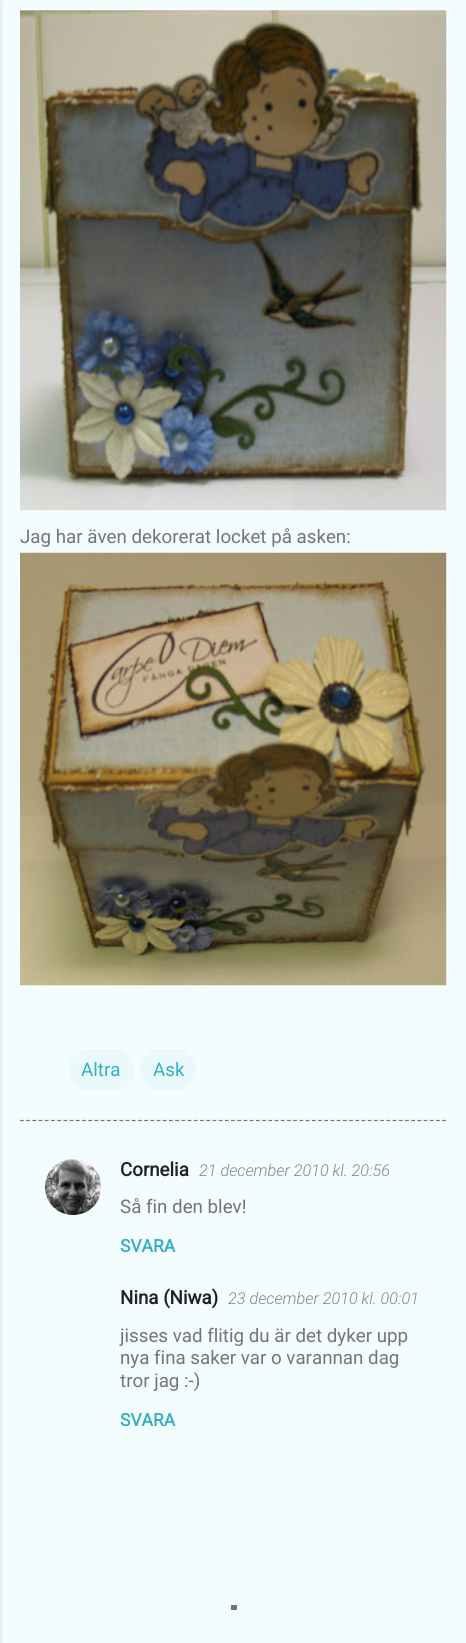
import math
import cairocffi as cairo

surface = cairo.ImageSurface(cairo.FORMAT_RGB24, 466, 1643)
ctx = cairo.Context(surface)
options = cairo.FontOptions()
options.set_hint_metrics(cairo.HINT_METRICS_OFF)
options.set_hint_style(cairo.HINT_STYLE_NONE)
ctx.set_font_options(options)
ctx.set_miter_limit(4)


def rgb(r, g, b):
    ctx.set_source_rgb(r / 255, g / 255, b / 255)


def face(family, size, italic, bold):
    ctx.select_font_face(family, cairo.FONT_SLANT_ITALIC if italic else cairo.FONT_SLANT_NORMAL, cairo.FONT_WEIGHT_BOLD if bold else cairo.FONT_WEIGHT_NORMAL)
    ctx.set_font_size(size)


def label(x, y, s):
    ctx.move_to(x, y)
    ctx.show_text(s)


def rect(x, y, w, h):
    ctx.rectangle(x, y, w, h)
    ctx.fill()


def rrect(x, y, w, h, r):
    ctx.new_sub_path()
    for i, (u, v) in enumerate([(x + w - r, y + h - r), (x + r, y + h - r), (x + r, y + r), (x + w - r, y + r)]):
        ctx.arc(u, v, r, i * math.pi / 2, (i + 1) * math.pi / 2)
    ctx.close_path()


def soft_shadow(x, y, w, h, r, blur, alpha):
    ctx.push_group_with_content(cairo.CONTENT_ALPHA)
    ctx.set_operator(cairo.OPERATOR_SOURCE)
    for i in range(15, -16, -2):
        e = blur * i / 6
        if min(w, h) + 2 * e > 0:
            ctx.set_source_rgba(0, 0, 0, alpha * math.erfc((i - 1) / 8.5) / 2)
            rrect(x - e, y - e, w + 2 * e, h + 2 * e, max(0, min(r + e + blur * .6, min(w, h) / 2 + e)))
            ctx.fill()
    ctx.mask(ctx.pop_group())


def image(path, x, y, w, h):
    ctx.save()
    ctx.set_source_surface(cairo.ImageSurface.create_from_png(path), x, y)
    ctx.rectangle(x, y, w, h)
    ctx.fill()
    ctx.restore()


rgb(243, 253, 254)
ctx.paint()
rgb(0, 0, 0)
soft_shadow(-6, 1, 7, 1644, 0, 2, 0.1)
image('image0.png', 20, 10, 427, 501)
face('Roboto', 18.75, 0, 0)
rgb(117, 117, 117)
label(20, 543, 'Jag har även dekorerat locket på asken:')
image('image1.png', 20, 552, 427, 434)
rgb(234, 249, 251)
rrect(70, 1050, 63, 40, 19)
ctx.fill()
ctx.rectangle(70.5, 1050.5, 62, 39)
ctx.set_source_rgba(0.216, 0.686, 0.753, 0.05)
ctx.set_line_width(1)
ctx.stroke()
rgb(55, 175, 192)
label(81, 1076, 'Altra')
rgb(234, 249, 251)
rrect(141, 1050, 54, 40, 19)
ctx.fill()
ctx.rectangle(141.5, 1050.5, 53, 39)
ctx.set_source_rgba(0.216, 0.686, 0.753, 0.05)
ctx.stroke()
rgb(55, 175, 192)
label(153, 1076, 'Ask')
ctx.new_path()
ctx.move_to(20, 1120.5)
ctx.line_to(446, 1120.5)
rgb(112, 116, 117)
ctx.set_line_width(1.2)
ctx.set_dash([3.75, 2.46])
ctx.stroke()
image('image2.png', 45, 1159, 56, 57)
face('Roboto', 18.75, 0, 1)
rgb(33, 33, 33)
label(120, 1176, 'Cornelia')
face('Roboto Light', 16.25, 1, 0)
rgb(130, 134, 135)
label(199, 1176, '21 december 2010 kl. 20:56')
face('Roboto', 18.75, 0, 0)
rgb(117, 117, 117)
label(120, 1213, 'Så fin den blev!')
face('Roboto', 17.5, 0, 1)
rgb(55, 175, 192)
label(120, 1252, 'SVARA')
face('Roboto', 18.75, 0, 1)
rgb(33, 33, 33)
label(120, 1304, 'Nina (Niwa)')
face('Roboto Light', 16.25, 1, 0)
rgb(130, 134, 135)
label(228, 1304, '23 december 2010 kl. 00:01')
face('Roboto', 18.75, 0, 0)
rgb(117, 117, 117)
label(120, 1342, 'jisses vad flitig du är det dyker upp')
label(120, 1364, 'nya fina saker var o varannan dag')
label(120, 1387, 'tror jag :-)')
face('Roboto', 17.5, 0, 1)
rgb(55, 175, 192)
label(120, 1426, 'SVARA')
rgb(112, 116, 117)
rect(231, 1605, 6, 5)
surface.write_to_png('render.png')
